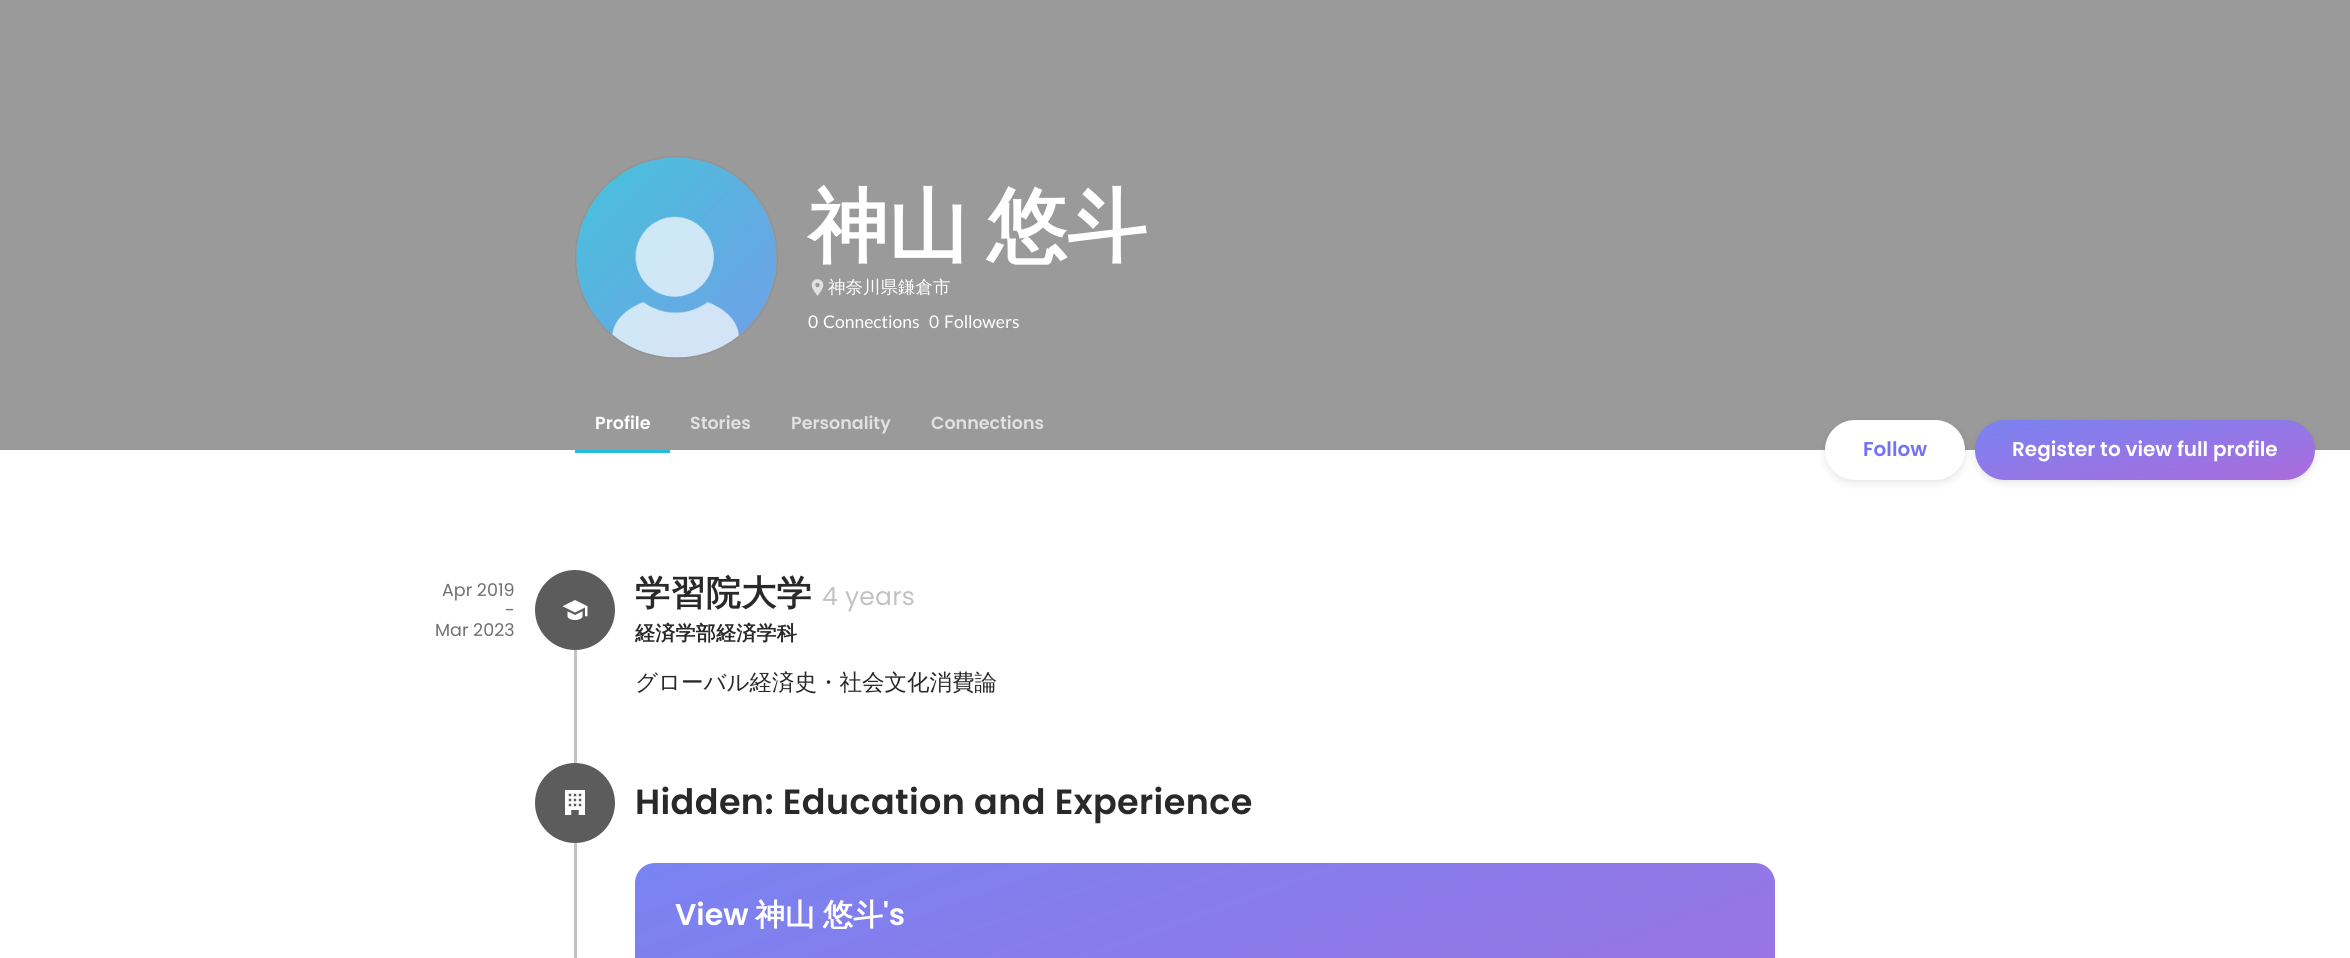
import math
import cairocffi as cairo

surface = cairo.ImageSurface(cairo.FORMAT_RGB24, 2350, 958)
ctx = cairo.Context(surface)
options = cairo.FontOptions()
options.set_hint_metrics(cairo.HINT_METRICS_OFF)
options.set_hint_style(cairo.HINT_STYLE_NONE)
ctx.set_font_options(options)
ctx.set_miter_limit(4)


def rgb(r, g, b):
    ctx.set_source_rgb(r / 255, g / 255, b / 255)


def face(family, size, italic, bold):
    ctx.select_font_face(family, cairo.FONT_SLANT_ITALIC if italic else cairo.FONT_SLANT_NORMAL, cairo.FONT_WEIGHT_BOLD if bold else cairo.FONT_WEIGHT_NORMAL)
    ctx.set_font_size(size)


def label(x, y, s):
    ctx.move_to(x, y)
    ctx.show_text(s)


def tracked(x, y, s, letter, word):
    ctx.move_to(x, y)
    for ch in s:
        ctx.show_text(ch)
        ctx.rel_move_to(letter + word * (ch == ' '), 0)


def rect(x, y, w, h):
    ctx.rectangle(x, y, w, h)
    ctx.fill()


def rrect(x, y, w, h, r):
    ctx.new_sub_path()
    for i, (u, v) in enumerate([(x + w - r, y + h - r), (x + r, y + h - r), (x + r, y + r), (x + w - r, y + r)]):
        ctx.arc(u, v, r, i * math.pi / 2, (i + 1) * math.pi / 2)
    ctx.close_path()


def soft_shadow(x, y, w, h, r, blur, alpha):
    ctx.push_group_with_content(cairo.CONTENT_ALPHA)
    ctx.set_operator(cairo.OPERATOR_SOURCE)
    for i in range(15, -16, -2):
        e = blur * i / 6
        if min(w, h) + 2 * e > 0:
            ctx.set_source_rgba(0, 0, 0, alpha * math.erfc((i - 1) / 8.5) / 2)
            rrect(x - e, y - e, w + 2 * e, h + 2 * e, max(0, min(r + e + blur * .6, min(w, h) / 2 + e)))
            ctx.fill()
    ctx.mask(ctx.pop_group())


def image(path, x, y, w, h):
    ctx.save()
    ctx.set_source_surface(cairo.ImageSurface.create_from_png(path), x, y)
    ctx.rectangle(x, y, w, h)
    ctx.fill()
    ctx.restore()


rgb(255, 255, 255)
ctx.paint()
rgb(154, 154, 154)
rect(0, 0, 2350, 450)
ctx.arc(676.5, 257.5, 101, 0, 2 * math.pi)
rgb(145, 145, 145)
ctx.set_line_width(1)
ctx.stroke()
image('image0.png', 576, 157, 201, 201)
face('WenQuanYi Zen Hei', 80, 0, 1)
rgb(255, 255, 255)
tracked(808, 254, '神山 悠斗', 0, -5)
image('image1.png', 811, 279, 13, 17)
face('WenQuanYi Zen Hei Medium', 17.5, 0, 0)
label(828, 293, '神奈川県鎌倉市')
face('Lato', 17.5, 0, 0)
label(808, 328, '0')
label(823, 328, 'Connections')
label(929, 328, '0')
label(944, 328, 'Followers')
rgb(33, 189, 219)
rect(575, 450, 95, 3)
face('Poppins SemiBold', 17.5, 0, 0)
rgb(255, 255, 255)
label(595, 429, 'Profile')
rgb(225, 225, 225)
label(690, 429, 'Stories')
label(791, 429, 'Personality')
label(931, 429, 'Connections')
rgb(0, 0, 0)
soft_shadow(1825, 423, 140, 60, 30, 4, 0.1)
rgb(255, 255, 255)
rrect(1825, 420, 140, 60, 30)
ctx.fill()
face('Poppins SemiBold', 20, 0, 0)
rgb(115, 114, 242)
label(1863, 456, 'Follow')
rgb(0, 0, 0)
soft_shadow(1975, 423, 340, 60, 30, 4, 0.1)
gradient = cairo.LinearGradient(2135, 392, 2155, 508)
gradient.add_color_stop_rgba(0, 0.475, 0.514, 0.949, 1)
gradient.add_color_stop_rgba(1, 0.671, 0.42, 0.859, 1)
ctx.set_source(gradient)
rrect(1975, 420, 340, 60, 30)
ctx.fill()
rgb(255, 255, 255)
label(2012, 456, 'Register to view full profile')
face('Poppins', 17.5, 0, 0)
rgb(112, 112, 112)
label(442, 596, 'Apr 2019')
label(505, 616, '-')
label(435, 636, 'Mar 2023')
rgb(194, 194, 194)
rect(574, 649, 3, 309)
rgb(92, 92, 92)
ctx.new_path()
ctx.arc(575, 610, 40, 0, 2 * math.pi)
ctx.fill()
image('image2.png', 562, 600, 26, 20)
face('WenQuanYi Zen Hei', 35, 0, 1)
rgb(41, 41, 41)
tracked(635, 605, '学習院大学', 0.4, 0)
face('Poppins', 25, 0, 0)
rgb(194, 194, 194)
tracked(822, 605, '4 years', 0.25, 0)
face('WenQuanYi Zen Hei', 20, 0, 1)
rgb(41, 41, 41)
tracked(635, 640, '経済学部経済学科', 0.25, 0)
face('WenQuanYi Zen Hei Medium', 22.5, 0, 0)
label(635, 690, 'グローバル経済史・社会文化消費論')
rgb(92, 92, 92)
ctx.new_path()
ctx.arc(575, 803, 40, 0, 2 * math.pi)
ctx.fill()
image('image3.png', 565, 790, 20, 25)
face('Poppins SemiBold', 35, 0, 0)
rgb(41, 41, 41)
tracked(635, 814, 'Hidden: Education and Experience', 0.4, 0)
gradient = cairo.LinearGradient(1074, 704, 1336, 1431)
gradient.add_color_stop_rgba(0, 0.475, 0.514, 0.949, 1)
gradient.add_color_stop_rgba(1, 0.671, 0.42, 0.859, 1)
ctx.set_source(gradient)
rrect(635, 863, 1140, 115, 20)
ctx.fill()
face('Poppins SemiBold', 30, 0, 0)
rgb(255, 255, 255)
label(675, 925, 'View')
face('WenQuanYi Zen Hei', 30, 0, 1)
tracked(755, 925, '神山 悠斗', 0, -1)
face('Poppins SemiBold', 30, 0, 0)
label(883, 925, '\'s')
surface.write_to_png('render.png')
